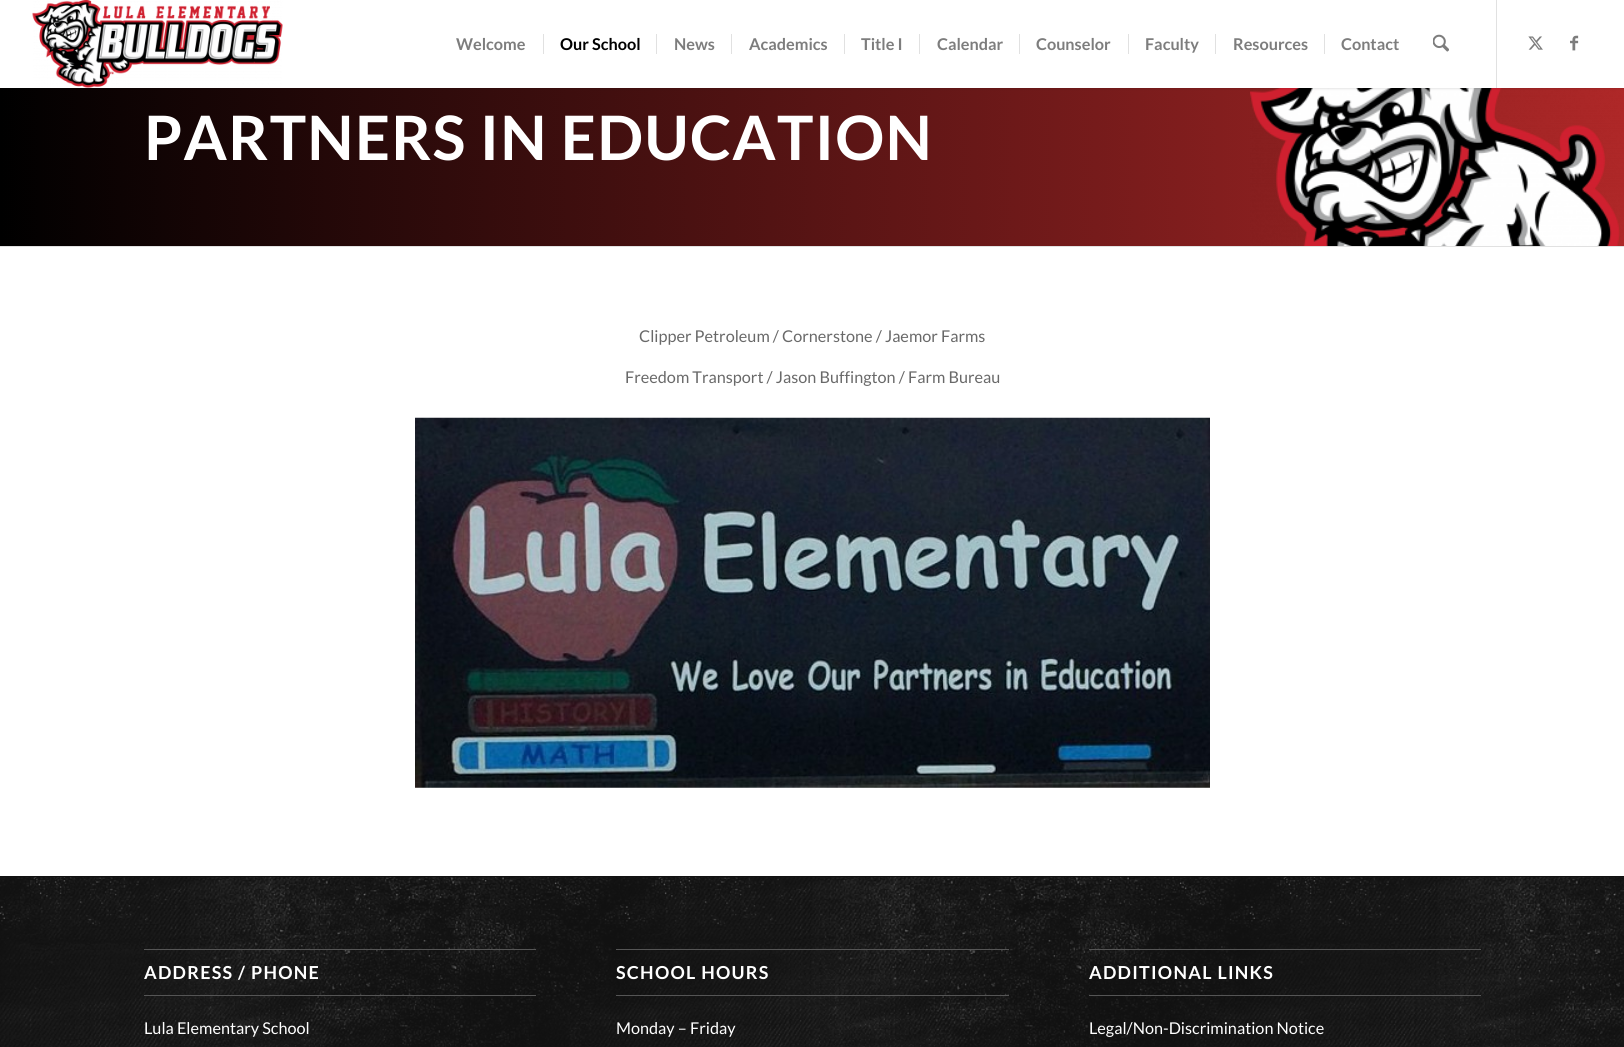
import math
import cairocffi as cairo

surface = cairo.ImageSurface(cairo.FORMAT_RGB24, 1624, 1047)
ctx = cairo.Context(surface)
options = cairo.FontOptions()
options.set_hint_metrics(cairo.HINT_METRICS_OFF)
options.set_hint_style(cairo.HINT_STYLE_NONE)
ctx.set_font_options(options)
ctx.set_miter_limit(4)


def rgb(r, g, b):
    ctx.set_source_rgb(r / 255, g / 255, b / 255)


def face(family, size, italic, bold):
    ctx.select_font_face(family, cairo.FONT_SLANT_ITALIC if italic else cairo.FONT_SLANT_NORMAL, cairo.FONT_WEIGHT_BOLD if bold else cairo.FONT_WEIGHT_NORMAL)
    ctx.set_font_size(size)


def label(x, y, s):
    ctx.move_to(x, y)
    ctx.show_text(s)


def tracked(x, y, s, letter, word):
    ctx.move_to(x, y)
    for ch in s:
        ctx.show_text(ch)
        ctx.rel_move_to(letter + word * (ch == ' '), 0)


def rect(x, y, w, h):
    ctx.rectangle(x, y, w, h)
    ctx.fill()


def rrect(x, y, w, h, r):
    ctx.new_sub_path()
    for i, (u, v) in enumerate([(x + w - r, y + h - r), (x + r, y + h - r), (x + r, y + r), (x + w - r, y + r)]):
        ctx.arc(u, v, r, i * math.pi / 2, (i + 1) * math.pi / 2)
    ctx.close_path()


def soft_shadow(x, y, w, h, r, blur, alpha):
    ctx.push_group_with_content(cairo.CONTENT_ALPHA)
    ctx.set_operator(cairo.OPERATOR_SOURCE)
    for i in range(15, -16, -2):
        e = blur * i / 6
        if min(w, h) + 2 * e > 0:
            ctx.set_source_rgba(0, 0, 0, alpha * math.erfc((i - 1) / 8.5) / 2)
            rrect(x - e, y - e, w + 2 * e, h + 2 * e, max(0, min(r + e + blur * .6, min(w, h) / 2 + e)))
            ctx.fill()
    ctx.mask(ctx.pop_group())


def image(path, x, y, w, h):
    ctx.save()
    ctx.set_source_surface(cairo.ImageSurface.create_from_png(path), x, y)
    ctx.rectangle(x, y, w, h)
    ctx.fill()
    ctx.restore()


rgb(255, 255, 255)
ctx.paint()
image('image4.png', 0, 88, 1624, 158)
rgb(0, 0, 0)
soft_shadow(-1, -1, 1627, 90, 0, 1, 0.1)
rgb(255, 255, 255)
rect(0, 0, 1624, 88)
image('image0.png', 32, 0, 251, 88)
rgb(225, 225, 225)
rect(1496, 0, 1, 88)
face('Lato', 16.25, 0, 1)
rgb(125, 125, 125)
label(456, 50, 'Welcome')
rgb(0, 0, 0)
label(560, 50, 'Our School')
rgb(225, 225, 225)
rect(543, 34, 1, 20)
rgb(125, 125, 125)
label(674, 50, 'News')
rgb(225, 225, 225)
rect(656, 34, 1, 20)
rgb(125, 125, 125)
label(749, 50, 'Academics')
rgb(225, 225, 225)
rect(731, 34, 1, 20)
rgb(125, 125, 125)
label(861, 50, 'Title I')
rgb(225, 225, 225)
rect(844, 34, 1, 20)
rgb(125, 125, 125)
label(937, 50, 'Calendar')
rgb(225, 225, 225)
rect(919, 34, 1, 20)
rgb(125, 125, 125)
label(1036, 50, 'Counselor')
rgb(225, 225, 225)
rect(1019, 34, 1, 20)
rgb(125, 125, 125)
label(1145, 50, 'Faculty')
rgb(225, 225, 225)
rect(1128, 34, 1, 20)
rgb(125, 125, 125)
label(1233, 50, 'Resources')
rgb(225, 225, 225)
rect(1215, 34, 1, 20)
rgb(125, 125, 125)
label(1341, 50, 'Contact')
rgb(225, 225, 225)
rect(1324, 34, 1, 20)
image('image1.png', 1433, 34, 16, 18)
image('image2.png', 1528, 36, 15, 14)
image('image3.png', 1570, 35, 9, 16)
face('Lato', 61.25, 0, 1)
rgb(255, 255, 255)
tracked(144, 160, 'PARTNERS IN EDUCATION', 1.25, 0)
rgb(225, 225, 225)
rect(0, 246, 1624, 1)
face('Lato', 16.25, 0, 0)
rgb(105, 105, 105)
label(639, 342, 'Clipper Petroleum / Cornerstone / Jaemor Farms')
label(625, 383, 'Freedom Transport / Jason Buffington / Farm Bureau')
image('image5.png', 415, 417, 795, 371)
rgb(17, 17, 17)
rect(0, 876, 1624, 171)
image('image6.png', 0, 877, 1624, 170)
rgb(85, 85, 85)
rect(144, 949, 392, 1)
rect(144, 995, 392, 1)
face('Lato', 17.9, 0, 1)
rgb(255, 255, 255)
tracked(144, 979, 'ADDRESS / PHONE', 1.25, 0)
face('Lato', 16.25, 0, 0)
label(144, 1034, 'Lula Elementary School')
rgb(85, 85, 85)
rect(616, 949, 393, 1)
rect(616, 995, 393, 1)
face('Lato', 17.9, 0, 1)
rgb(255, 255, 255)
tracked(616, 979, 'SCHOOL HOURS', 1.25, 0)
face('Lato', 16.25, 0, 0)
label(616, 1034, 'Monday – Friday')
rgb(85, 85, 85)
rect(1089, 949, 392, 1)
rect(1089, 995, 392, 1)
face('Lato', 17.9, 0, 1)
rgb(255, 255, 255)
tracked(1089, 979, 'ADDITIONAL LINKS', 1.25, 0)
face('Lato', 16.25, 0, 0)
label(1089, 1034, 'Legal/Non-Discrimination Notice')
surface.write_to_png('render.png')
